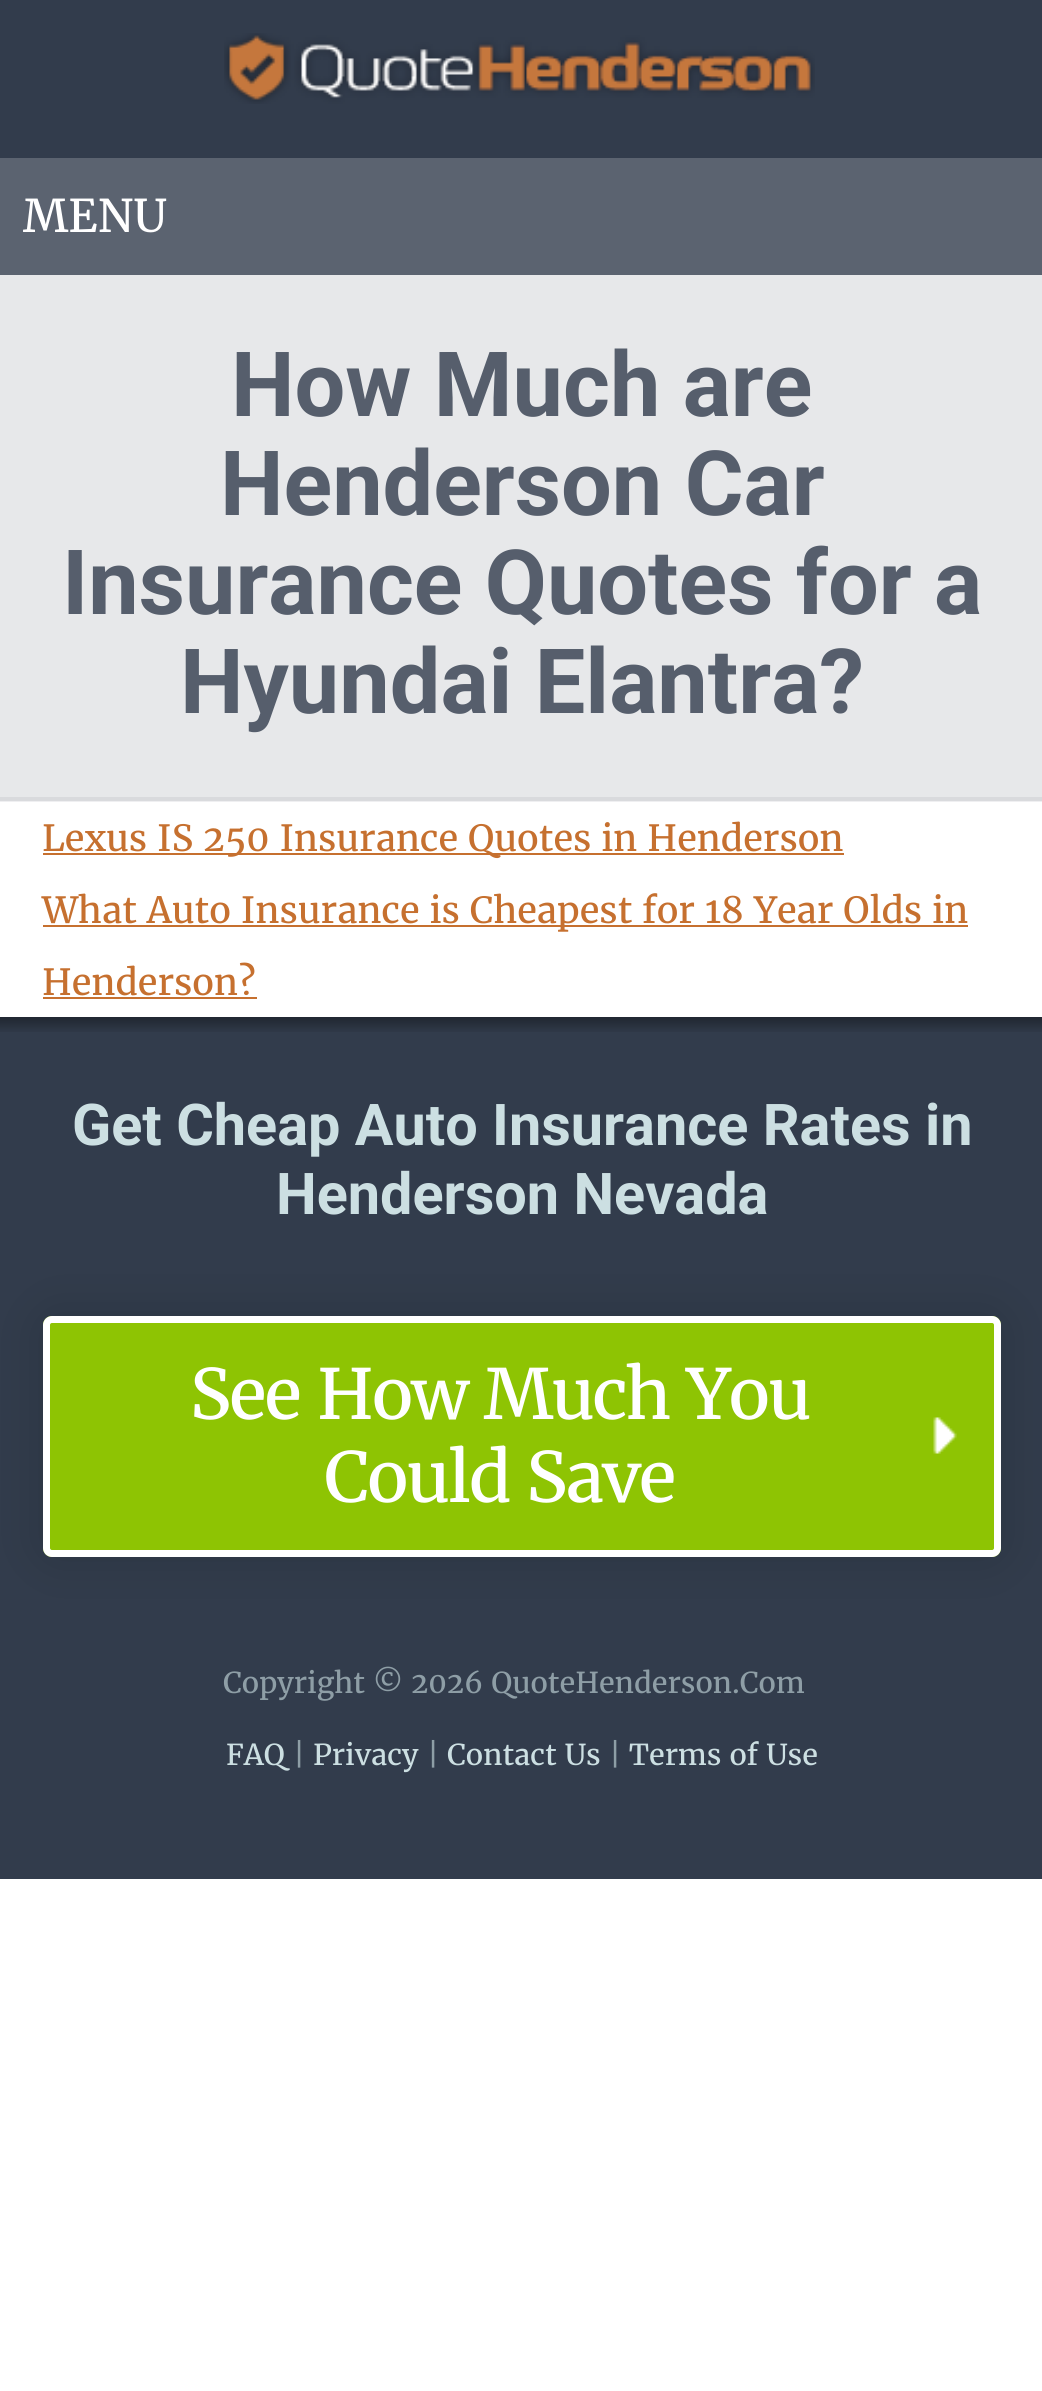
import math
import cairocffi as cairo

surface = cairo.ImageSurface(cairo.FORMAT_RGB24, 1042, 2391)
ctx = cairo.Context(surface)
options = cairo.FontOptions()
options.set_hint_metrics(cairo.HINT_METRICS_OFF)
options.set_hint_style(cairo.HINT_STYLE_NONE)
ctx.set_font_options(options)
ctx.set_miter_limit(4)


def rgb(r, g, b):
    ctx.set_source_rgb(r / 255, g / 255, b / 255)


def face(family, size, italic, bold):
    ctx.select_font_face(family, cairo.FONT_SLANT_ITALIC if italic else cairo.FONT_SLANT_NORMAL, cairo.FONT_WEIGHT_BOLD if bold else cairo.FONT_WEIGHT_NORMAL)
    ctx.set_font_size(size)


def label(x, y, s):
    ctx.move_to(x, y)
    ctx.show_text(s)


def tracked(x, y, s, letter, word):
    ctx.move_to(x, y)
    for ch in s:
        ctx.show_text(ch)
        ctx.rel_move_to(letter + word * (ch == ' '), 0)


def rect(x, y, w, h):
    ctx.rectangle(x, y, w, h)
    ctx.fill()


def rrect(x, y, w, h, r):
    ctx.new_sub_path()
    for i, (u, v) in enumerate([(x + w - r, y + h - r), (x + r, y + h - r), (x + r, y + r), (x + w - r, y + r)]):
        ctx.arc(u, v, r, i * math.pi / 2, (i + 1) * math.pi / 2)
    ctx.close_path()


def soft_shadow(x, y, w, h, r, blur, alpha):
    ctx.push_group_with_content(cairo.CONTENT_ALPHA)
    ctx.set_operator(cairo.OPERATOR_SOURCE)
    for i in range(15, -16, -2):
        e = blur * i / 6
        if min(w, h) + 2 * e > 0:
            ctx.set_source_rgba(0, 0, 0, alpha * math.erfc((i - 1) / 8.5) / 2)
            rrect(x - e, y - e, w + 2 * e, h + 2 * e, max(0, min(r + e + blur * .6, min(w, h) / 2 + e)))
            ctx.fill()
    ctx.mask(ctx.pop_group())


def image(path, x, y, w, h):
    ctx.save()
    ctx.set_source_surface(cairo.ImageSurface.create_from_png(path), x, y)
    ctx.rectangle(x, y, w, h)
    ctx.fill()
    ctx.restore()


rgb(255, 255, 255)
ctx.paint()
rgb(239, 239, 241)
rect(0, 801, 1042, 1)
rgb(50, 60, 76)
rect(0, 0, 1042, 158)
image('image0.png', 224, 33, 591, 71)
rgb(91, 99, 112)
rect(0, 158, 1042, 117)
face('Merriweather', 45, 0, 0)
rgb(255, 255, 255)
label(23, 232, 'MENU')
rgb(231, 232, 234)
rect(0, 275, 1042, 522)
rgb(217, 218, 221)
rect(0, 797, 1042, 4)
face('Roboto', 90, 0, 1)
rgb(86, 94, 108)
label(231, 416, 'How Much are')
label(220, 515, 'Henderson Car')
label(62, 614, 'Insurance Quotes for a')
label(180, 713, 'Hyundai Elantra?')
rgb(198, 112, 47)
rect(43, 853, 801, 2)
face('Merriweather', 36, 0, 0)
label(42, 851, 'Lexus IS 250 Insurance Quotes in Henderson')
rect(43, 925, 925, 2)
label(42, 923, 'What Auto Insurance is Cheapest for 18 Year Olds in')
label(42, 995, 'Henderson?')
rect(43, 997, 214, 2)
rgb(50, 60, 76)
rect(0, 1017, 1042, 862)
image('image1.png', 0, 1017, 1042, 15)
face('Roboto', 57.6, 0, 1)
rgb(204, 223, 226)
label(72, 1145, 'Get Cheap Auto Insurance Rates in')
label(276, 1214, 'Henderson Nevada')
rgb(0, 0, 0)
soft_shadow(43, 1316, 958, 241, 9, 28, 0.15)
rgb(142, 196, 3)
rrect(43, 1316, 958, 241, 9)
ctx.fill()
image('image2.png', 933, 1417, 24, 37)
rrect(46.5, 1319.5, 951, 234, 5.5)
rgb(255, 255, 255)
ctx.set_line_width(7)
ctx.stroke()
face('Merriweather', 69.1, 0, 0)
tracked(190, 1419, 'See How Much You', -2.25, 0)
tracked(324, 1502, 'Could Save', -2.25, 0)
face('Merriweather', 28.8, 0, 0)
rgb(142, 158, 166)
label(223, 1693, 'Copyright © 2026 QuoteHenderson.Com')
rgb(204, 223, 226)
label(226, 1765, 'FAQ')
rgb(142, 158, 166)
label(293, 1765, '|')
rgb(204, 223, 226)
label(313, 1765, 'Privacy')
rgb(142, 158, 166)
label(427, 1765, '|')
rgb(204, 223, 226)
label(447, 1765, 'Contact Us')
rgb(142, 158, 166)
label(609, 1765, '|')
rgb(204, 223, 226)
label(629, 1765, 'Terms of Use')
surface.write_to_png('render.png')
